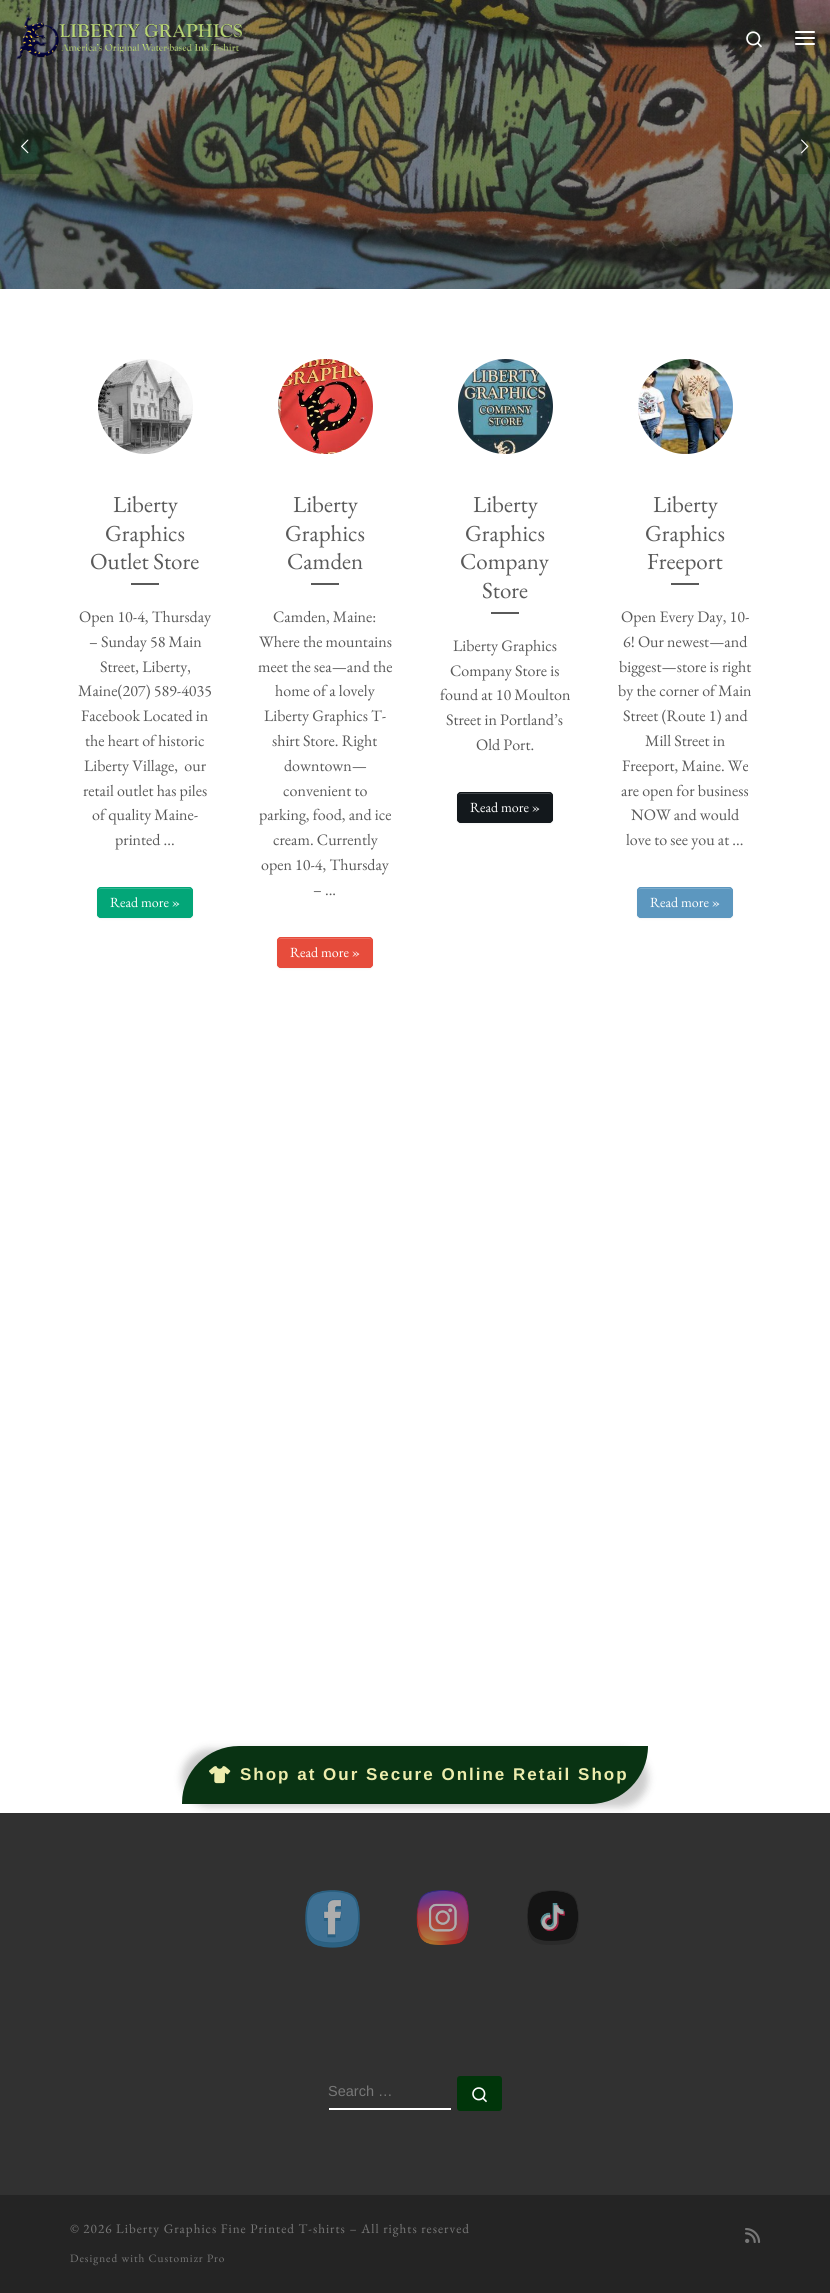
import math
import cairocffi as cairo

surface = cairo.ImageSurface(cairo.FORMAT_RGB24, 830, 2293)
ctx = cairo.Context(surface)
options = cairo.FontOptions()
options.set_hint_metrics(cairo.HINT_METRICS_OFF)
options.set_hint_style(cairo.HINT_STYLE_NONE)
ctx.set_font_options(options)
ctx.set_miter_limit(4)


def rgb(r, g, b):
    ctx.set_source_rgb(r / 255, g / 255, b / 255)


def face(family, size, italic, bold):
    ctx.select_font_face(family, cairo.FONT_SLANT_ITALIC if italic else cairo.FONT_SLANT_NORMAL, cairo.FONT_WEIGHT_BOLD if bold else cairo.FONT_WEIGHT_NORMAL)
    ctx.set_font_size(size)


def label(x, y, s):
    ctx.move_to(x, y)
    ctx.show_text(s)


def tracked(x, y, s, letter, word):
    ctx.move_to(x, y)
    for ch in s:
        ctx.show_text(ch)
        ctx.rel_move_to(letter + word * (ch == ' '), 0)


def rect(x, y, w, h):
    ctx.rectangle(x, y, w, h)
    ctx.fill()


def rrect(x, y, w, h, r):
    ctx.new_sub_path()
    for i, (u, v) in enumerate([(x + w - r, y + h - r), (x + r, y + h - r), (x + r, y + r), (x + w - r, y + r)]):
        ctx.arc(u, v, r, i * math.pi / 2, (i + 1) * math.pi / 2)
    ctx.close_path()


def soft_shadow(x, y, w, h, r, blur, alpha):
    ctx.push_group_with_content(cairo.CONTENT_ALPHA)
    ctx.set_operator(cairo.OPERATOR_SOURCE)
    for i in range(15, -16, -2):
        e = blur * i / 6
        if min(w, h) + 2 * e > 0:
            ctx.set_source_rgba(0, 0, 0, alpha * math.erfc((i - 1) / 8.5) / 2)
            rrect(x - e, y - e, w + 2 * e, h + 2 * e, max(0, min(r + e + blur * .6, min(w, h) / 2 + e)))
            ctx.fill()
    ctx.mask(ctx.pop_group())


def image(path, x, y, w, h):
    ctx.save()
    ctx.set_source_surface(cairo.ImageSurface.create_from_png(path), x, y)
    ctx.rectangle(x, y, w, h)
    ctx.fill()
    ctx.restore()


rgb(255, 255, 255)
ctx.paint()
image('image0.png', 0, 0, 830, 289)
ctx.set_source_rgba(0, 0.208, 0.039, 0.2)
ctx.new_path()
ctx.move_to(0, 114)
ctx.line_to(48, 114)
ctx.curve_to(49, 114, 50, 115, 50, 116)
ctx.line_to(50, 172)
ctx.curve_to(50, 173, 49, 174, 48, 174)
ctx.line_to(0, 174)
ctx.close_path()
ctx.fill()
image('image1.png', 21, 139, 8, 15)
ctx.new_path()
ctx.move_to(782, 114)
ctx.line_to(830, 114)
ctx.line_to(830, 174)
ctx.line_to(782, 174)
ctx.curve_to(781, 174, 780, 173, 780, 172)
ctx.line_to(780, 116)
ctx.curve_to(780, 115, 781, 114, 782, 114)
ctx.close_path()
ctx.fill()
image('image2.png', 801, 139, 8, 15)
image('image3.png', 16, 15, 227, 45)
image('image4.png', 746, 31, 16, 17)
rgb(255, 255, 255)
rrect(795, 31, 20, 2, 1)
ctx.fill()
rrect(795, 37, 20, 2, 1)
ctx.fill()
rrect(795, 43, 20, 2, 1)
ctx.fill()
image('image5.png', 98, 359, 95, 95)
ctx.save()
ctx.rectangle(70, 337, 150, 138)
ctx.clip()
ctx.arc(145.5, 406.5, 122.5, 0, 2 * math.pi)
ctx.set_line_width(150)
ctx.stroke()
ctx.restore()
face('EB Garamond', 23, 0, 0)
rgb(90, 90, 90)
label(113, 512, 'Liberty')
label(105, 541, 'Graphics')
label(90, 569, 'Outlet Store')
rect(131, 583, 28, 2)
face('EB Garamond', 16, 0, 0)
label(79, 622, 'Open 10-4, Thursday')
label(89, 647, '– Sunday 58 Main')
label(100, 672, 'Street, Liberty,')
label(78, 696, 'Maine(207) 589-4035')
label(81, 721, 'Facebook Located in')
label(85, 746, 'the heart of historic')
label(84, 771, 'Liberty Village,  our')
label(83, 796, 'retail outlet has piles')
label(92, 820, 'of quality Maine-')
label(115, 845, 'printed ...')
rgb(0, 0, 0)
soft_shadow(97, 888, 96, 31, 4, 1, 0.05)
rgb(3, 166, 120)
rrect(97, 887, 96, 31, 4)
ctx.fill()
rgb(53, 184, 147)
ctx.new_path()
ctx.move_to(101, 889)
ctx.line_to(189, 889)
ctx.curve_to(191, 889, 192, 890, 192, 892)
ctx.curve_to(192, 884, 178, 888, 174, 888)
ctx.line_to(116, 888)
ctx.curve_to(112, 888, 98, 884, 98, 892)
ctx.curve_to(98, 890, 99, 889, 101, 889)
ctx.close_path()
ctx.fill()
rrect(97.5, 887.5, 95, 30, 3.5)
rgb(3, 166, 120)
ctx.set_line_width(1)
ctx.stroke()
face('EB Garamond', 14, 0, 0)
rgb(255, 255, 255)
label(110, 907, 'Read more »')
image('image6.png', 278, 359, 95, 95)
ctx.save()
ctx.rectangle(250, 337, 150, 138)
ctx.clip()
ctx.arc(325.5, 406.5, 122.5, 0, 2 * math.pi)
ctx.set_line_width(150)
ctx.stroke()
ctx.restore()
face('EB Garamond', 23, 0, 0)
rgb(90, 90, 90)
label(293, 512, 'Liberty')
label(285, 541, 'Graphics')
label(287, 569, 'Camden')
rect(311, 583, 28, 2)
face('EB Garamond', 16, 0, 0)
label(273, 622, 'Camden, Maine:')
label(259, 647, 'Where the mountains')
label(258, 672, 'meet the sea—and the')
label(275, 696, 'home of a lovely')
label(264, 721, 'Liberty Graphics T-')
label(272, 746, 'shirt Store. Right')
label(284, 771, 'downtown—')
label(283, 796, 'convenient to')
label(259, 820, 'parking, food, and ice')
label(273, 845, 'cream. Currently')
label(261, 870, 'open 10-4, Thursday')
label(313, 895, '– ...')
rgb(0, 0, 0)
soft_shadow(277, 938, 96, 31, 4, 1, 0.05)
rgb(231, 76, 60)
rrect(277, 937, 96, 31, 4)
ctx.fill()
rgb(236, 112, 99)
ctx.new_path()
ctx.move_to(281, 939)
ctx.line_to(369, 939)
ctx.curve_to(371, 939, 372, 940, 372, 942)
ctx.curve_to(372, 934, 358, 938, 354, 938)
ctx.line_to(296, 938)
ctx.curve_to(292, 938, 278, 934, 278, 942)
ctx.curve_to(278, 940, 279, 939, 281, 939)
ctx.close_path()
ctx.fill()
rrect(277.5, 937.5, 95, 30, 3.5)
rgb(231, 76, 60)
ctx.stroke()
face('EB Garamond', 14, 0, 0)
rgb(255, 255, 255)
label(290, 957, 'Read more »')
image('image7.png', 458, 359, 95, 95)
ctx.save()
ctx.rectangle(430, 337, 150, 138)
ctx.clip()
ctx.arc(505.5, 406.5, 122.5, 0, 2 * math.pi)
ctx.set_line_width(150)
ctx.stroke()
ctx.restore()
face('EB Garamond', 23, 0, 0)
rgb(90, 90, 90)
label(473, 512, 'Liberty')
label(465, 541, 'Graphics')
label(460, 569, 'Company')
label(482, 598, 'Store')
rect(491, 612, 28, 2)
face('EB Garamond', 16, 0, 0)
label(453, 651, 'Liberty Graphics')
label(450, 676, 'Company Store is')
label(440, 700, 'found at 10 Moulton')
label(446, 725, 'Street in Portland’s')
label(476, 750, 'Old Port.')
rgb(0, 0, 0)
soft_shadow(457, 793, 96, 31, 4, 1, 0.05)
rgb(19, 24, 28)
rrect(457, 792, 96, 31, 4)
ctx.fill()
rgb(66, 70, 73)
ctx.new_path()
ctx.move_to(461, 794)
ctx.line_to(549, 794)
ctx.curve_to(551, 794, 552, 795, 552, 797)
ctx.curve_to(552, 789, 538, 793, 534, 793)
ctx.line_to(476, 793)
ctx.curve_to(472, 793, 458, 789, 458, 797)
ctx.curve_to(458, 795, 459, 794, 461, 794)
ctx.close_path()
ctx.fill()
rrect(457.5, 792.5, 95, 30, 3.5)
rgb(19, 24, 28)
ctx.stroke()
face('EB Garamond', 14, 0, 0)
rgb(255, 255, 255)
label(470, 812, 'Read more »')
image('image8.png', 638, 359, 95, 95)
ctx.save()
ctx.rectangle(610, 337, 150, 138)
ctx.clip()
ctx.arc(685.5, 406.5, 122.5, 0, 2 * math.pi)
ctx.set_line_width(150)
ctx.stroke()
ctx.restore()
face('EB Garamond', 23, 0, 0)
rgb(90, 90, 90)
label(653, 512, 'Liberty')
label(645, 541, 'Graphics')
label(647, 569, 'Freeport')
rect(671, 583, 28, 2)
face('EB Garamond', 16, 0, 0)
label(621, 622, 'Open Every Day, 10-')
label(623, 647, '6! Our newest—and')
label(619, 672, 'biggest—store is right')
label(618, 696, 'by the corner of Main')
label(623, 721, 'Street (Route 1) and')
label(645, 746, 'Mill Street in')
label(622, 771, 'Freeport, Maine. We')
label(621, 796, 'are open for business')
label(631, 820, 'NOW and would')
label(626, 845, 'love to see you at ...')
rgb(0, 0, 0)
soft_shadow(637, 888, 96, 31, 4, 1, 0.05)
rgb(92, 151, 191)
rrect(637, 887, 96, 31, 4)
ctx.fill()
rgb(125, 172, 204)
ctx.new_path()
ctx.move_to(641, 889)
ctx.line_to(729, 889)
ctx.curve_to(731, 889, 732, 890, 732, 892)
ctx.curve_to(732, 884, 718, 888, 714, 888)
ctx.line_to(656, 888)
ctx.curve_to(652, 888, 638, 884, 638, 892)
ctx.curve_to(638, 890, 639, 889, 641, 889)
ctx.close_path()
ctx.fill()
rrect(637.5, 887.5, 95, 30, 3.5)
rgb(92, 151, 191)
ctx.stroke()
face('EB Garamond', 14, 0, 0)
rgb(255, 255, 255)
label(650, 907, 'Read more »')
rgb(49, 49, 49)
rect(0, 1813, 830, 382)
rgb(0, 0, 0)
soft_shadow(182, 1749, 466, 58, 58, 4, 0.2)
rgb(9, 51, 19)
ctx.new_path()
ctx.move_to(239, 1746)
ctx.line_to(648, 1746)
ctx.curve_to(648, 1778, 622, 1804, 590, 1804)
ctx.line_to(182, 1804)
ctx.line_to(182, 1803)
ctx.curve_to(182, 1771.5, 207.5, 1746, 239, 1746)
ctx.close_path()
ctx.fill()
image('image9.png', 209, 1766, 22, 18)
face('Liberation Sans', 17, 0, 1)
rgb(237, 237, 173)
tracked(240, 1780, 'Shop at Our Secure Online Retail Shop', 2, 0)
image('image10.png', 305, 1890, 55, 58)
image('image11.png', 416, 1890, 53, 55)
image('image12.png', 527, 1890, 52, 55)
rgb(255, 255, 255)
rect(329, 2108, 122, 2)
face('Liberation Sans', 14.5, 0, 0)
rgb(119, 119, 119)
label(328, 2096, 'Search …')
rgb(0, 53, 10)
rrect(458, 2077, 43, 33, 2)
ctx.fill_preserve()
ctx.set_line_width(2)
ctx.stroke()
image('image13.png', 472, 2087, 15, 16)
rgb(36, 36, 36)
rect(0, 2195, 830, 98)
face('EB Garamond', 13.1, 0, 0)
rgb(119, 119, 119)
tracked(70, 2233, '© 2026 Liberty Graphics Fine Printed T-shirts – All rights reserved', 1, 0)
face('EB Garamond', 11.25, 0, 0)
tracked(70, 2262, 'Designed with Customizr Pro', 1, 0)
image('image14.png', 745, 2228, 16, 15)
surface.write_to_png('render.png')
